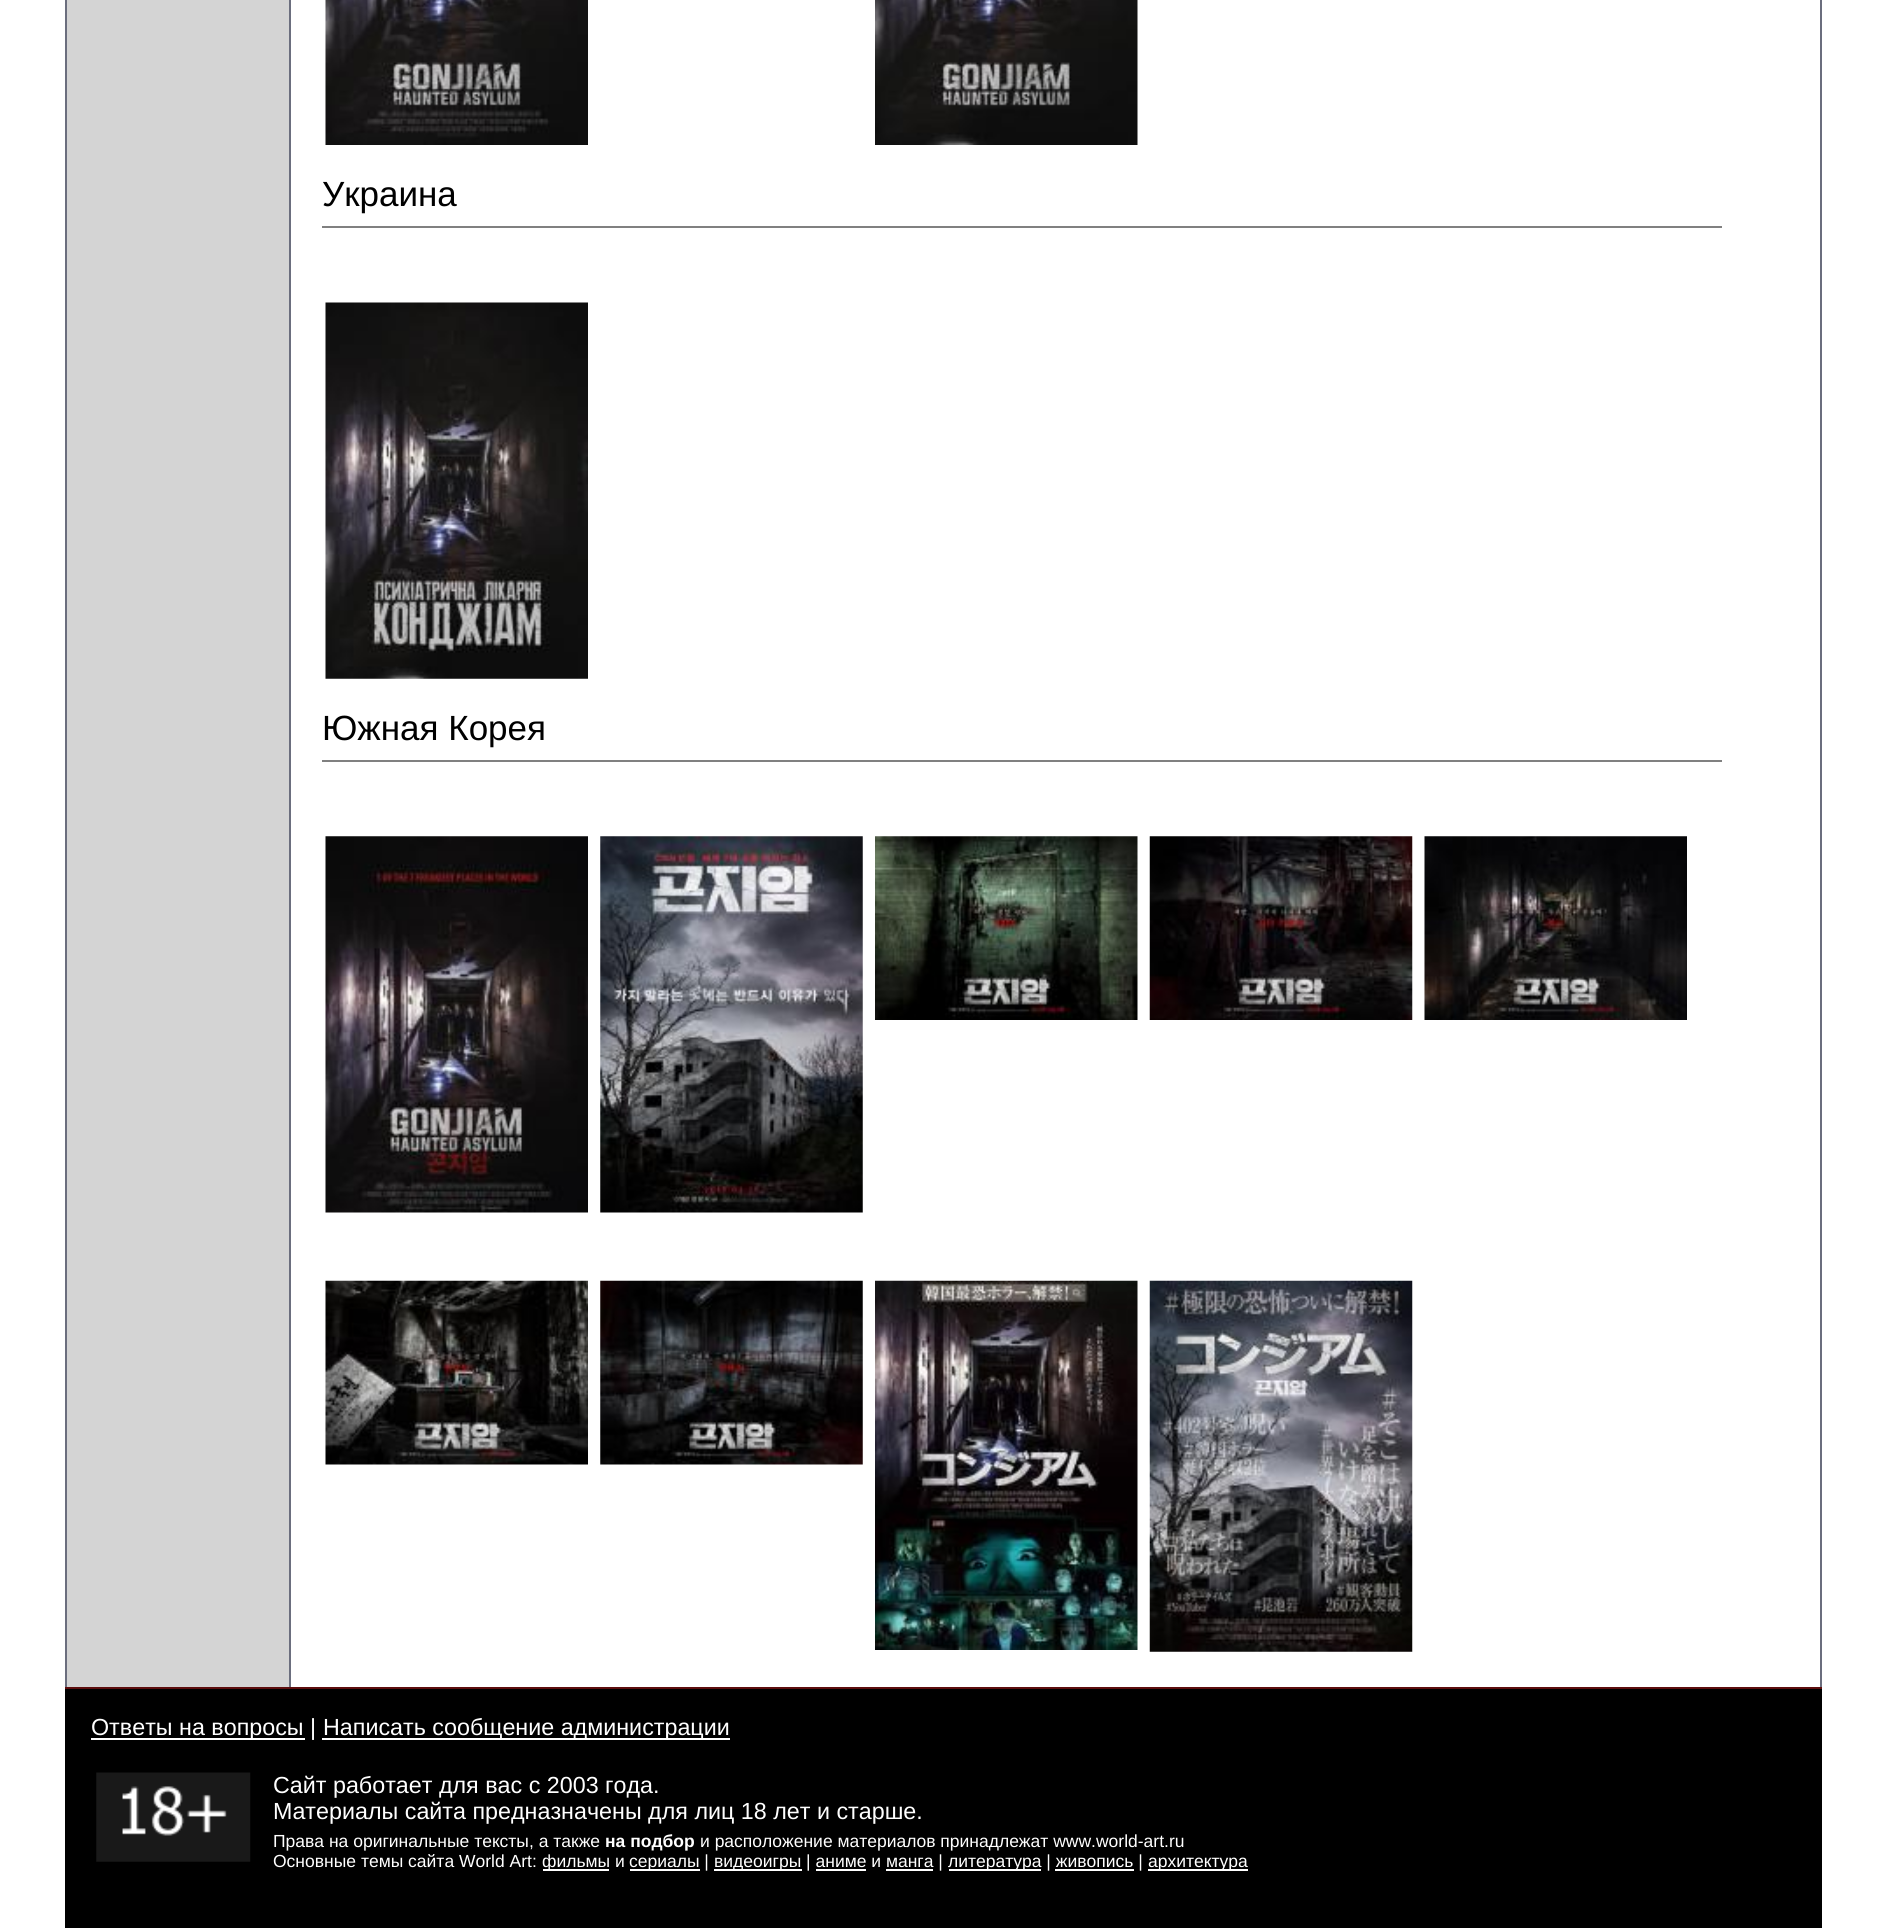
import math
import cairocffi as cairo

surface = cairo.ImageSurface(cairo.FORMAT_RGB24, 1885, 1928)
ctx = cairo.Context(surface)
options = cairo.FontOptions()
options.set_hint_metrics(cairo.HINT_METRICS_OFF)
options.set_hint_style(cairo.HINT_STYLE_NONE)
ctx.set_font_options(options)
ctx.set_miter_limit(4)


def rgb(r, g, b):
    ctx.set_source_rgb(r / 255, g / 255, b / 255)


def face(family, size, italic, bold):
    ctx.select_font_face(family, cairo.FONT_SLANT_ITALIC if italic else cairo.FONT_SLANT_NORMAL, cairo.FONT_WEIGHT_BOLD if bold else cairo.FONT_WEIGHT_NORMAL)
    ctx.set_font_size(size)


def label(x, y, s):
    ctx.move_to(x, y)
    ctx.show_text(s)


def rect(x, y, w, h):
    ctx.rectangle(x, y, w, h)
    ctx.fill()


def image(path, x, y, w, h):
    ctx.save()
    ctx.set_source_surface(cairo.ImageSurface.create_from_png(path), x, y)
    ctx.rectangle(x, y, w, h)
    ctx.fill()
    ctx.restore()


rgb(255, 255, 255)
ctx.paint()
rgb(107, 110, 126)
rect(65, 0, 2, 1687)
rgb(212, 212, 212)
rect(67, 0, 222, 1687)
rgb(107, 110, 126)
rect(289, 0, 2, 1687)
image('image0.png', 325, 0, 263, 145)
image('image1.png', 875, 0, 263, 145)
face('Liberation Sans', 35, 0, 0)
rgb(0, 0, 0)
label(322, 206, 'Украина')
rgb(128, 128, 128)
rect(322, 226, 1400, 2)
image('image2.png', 325, 302, 263, 377)
rgb(0, 0, 0)
label(322, 740, 'Южная Корея')
rgb(128, 128, 128)
rect(322, 760, 1400, 2)
image('image3.png', 325, 836, 263, 377)
image('image4.png', 600, 836, 263, 377)
image('image5.png', 875, 836, 263, 184)
image('image6.png', 1149, 836, 264, 184)
image('image7.png', 1424, 836, 263, 184)
image('image8.png', 325, 1280, 263, 185)
image('image9.png', 600, 1280, 263, 185)
image('image10.png', 875, 1280, 263, 370)
image('image11.png', 1149, 1280, 264, 372)
rgb(107, 110, 126)
rect(1820, 0, 2, 1687)
rgb(93, 14, 14)
rect(65, 1687, 1757, 2)
rgb(0, 0, 0)
rect(65, 1689, 1757, 239)
rgb(255, 255, 255)
rect(91, 1738, 214, 2)
face('Liberation Sans', 23.3, 0, 0)
label(91, 1735, 'Ответы на вопросы |')
rect(322, 1738, 408, 2)
label(323, 1735, 'Написать сообщение администрации')
image('image12.png', 96, 1772, 155, 90)
label(273, 1793, 'Сайт работает для вас с 2003 года.')
label(273, 1819, 'Материалы сайта предназначены для лиц 18 лет и старше.')
face('Liberation Sans', 17.5, 0, 0)
label(273, 1847, 'Права на оригинальные тексты, а также')
face('Liberation Sans', 17.5, 0, 1)
label(605, 1847, 'на подбор')
face('Liberation Sans', 17.5, 0, 0)
label(700, 1847, 'и расположение материалов принадлежат www.world-art.ru')
label(273, 1867, 'Основные темы сайта World Art:')
rect(543, 1869, 66, 2)
label(542, 1867, 'фильмы и')
rect(630, 1869, 70, 2)
label(629, 1867, 'сериалы |')
rect(714, 1869, 88, 2)
label(714, 1867, 'видеоигры | аниме и манга |')
rect(949, 1869, 92, 2)
label(948, 1867, 'литература | живопись |')
rect(1148, 1869, 100, 2)
label(1148, 1867, 'архитектура')
rect(816, 1869, 50, 2)
rect(886, 1869, 47, 2)
rect(1055, 1869, 79, 2)
surface.write_to_png('render.png')
